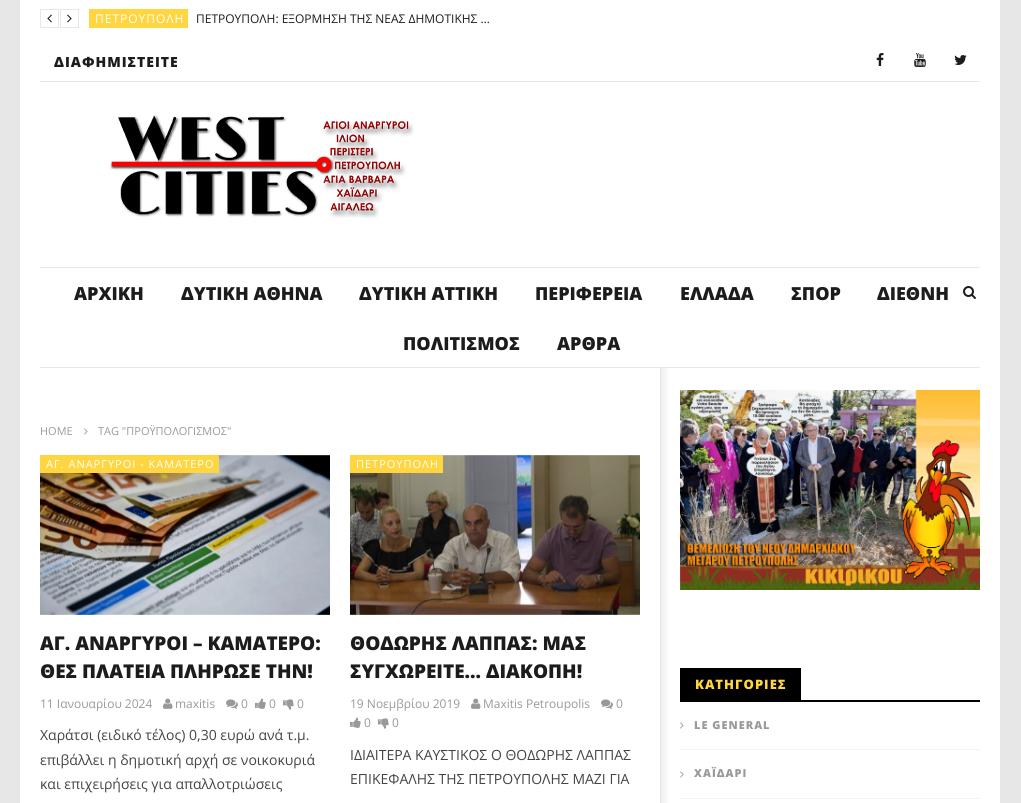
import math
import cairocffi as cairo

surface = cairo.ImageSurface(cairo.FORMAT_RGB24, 1021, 803)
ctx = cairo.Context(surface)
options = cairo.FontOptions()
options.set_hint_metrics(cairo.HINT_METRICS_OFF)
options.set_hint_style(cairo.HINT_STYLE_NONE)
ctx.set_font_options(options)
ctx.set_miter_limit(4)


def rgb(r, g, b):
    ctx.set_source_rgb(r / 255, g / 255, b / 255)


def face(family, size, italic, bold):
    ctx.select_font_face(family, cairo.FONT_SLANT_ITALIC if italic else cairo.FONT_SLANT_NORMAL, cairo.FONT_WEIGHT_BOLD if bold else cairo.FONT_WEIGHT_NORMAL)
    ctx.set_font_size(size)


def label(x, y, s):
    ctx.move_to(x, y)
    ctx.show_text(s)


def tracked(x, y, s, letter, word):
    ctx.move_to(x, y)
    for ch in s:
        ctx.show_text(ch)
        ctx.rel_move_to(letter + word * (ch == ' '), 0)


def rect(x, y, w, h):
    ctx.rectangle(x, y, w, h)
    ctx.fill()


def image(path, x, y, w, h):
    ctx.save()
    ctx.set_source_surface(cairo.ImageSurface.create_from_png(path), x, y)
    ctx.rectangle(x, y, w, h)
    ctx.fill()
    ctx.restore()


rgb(231, 231, 231)
ctx.paint()
rgb(255, 255, 255)
rect(20, 0, 980, 803)
ctx.rectangle(40.5, 9.5, 18, 18)
rgb(231, 231, 231)
ctx.set_line_width(1)
ctx.stroke()
image('image0.png', 47, 14, 5, 9)
ctx.rectangle(60.5, 9.5, 18, 18)
ctx.stroke()
image('image1.png', 67, 14, 5, 9)
rgb(255, 213, 64)
rect(89, 9, 99, 19)
face('Open Sans', 12, 0, 0)
rgb(255, 255, 255)
tracked(95, 23, 'ΠΕΤΡΟΥΠΟΛΗ', 1, 0)
rgb(28, 28, 28)
label(196, 23, 'ΠΕΤΡΟΥΠΟΛΗ: ΕΞΟΡΜΗΣΗ ΤΗΣ ΝΕΑΣ ΔΗΜΟΤΙΚΗΣ …')
face('Open Sans ExtraBold', 14, 0, 0)
tracked(54, 67, 'ΔΙΑΦΗΜΙΣΤΕΙΤΕ', 1, 0)
image('image2.png', 876, 53, 8, 13)
image('image3.png', 914, 53, 12, 14)
image('image4.png', 954, 55, 13, 10)
rgb(231, 231, 231)
rect(40, 81, 940, 1)
image('image5.png', 109, 114, 305, 104)
rect(40, 267, 940, 1)
face('Open Sans ExtraBold', 18, 0, 0)
rgb(28, 28, 28)
label(74, 300, 'ΑΡΧΙΚΗ')
label(181, 300, 'ΔΥΤΙΚΗ ΑΘΗΝΑ')
label(359, 300, 'ΔΥΤΙΚΗ ΑΤΤΙΚΗ')
label(535, 300, 'ΠΕΡΙΦΕΡΕΙΑ')
label(680, 300, 'ΕΛΛΑΔΑ')
label(791, 300, 'ΣΠΟΡ')
label(877, 300, 'ΔΙΕΘΝΗ')
label(403, 350, 'ΠΟΛΙΤΙΣΜΟΣ')
label(557, 350, 'ΑΡΘΡΑ')
image('image6.png', 963, 286, 13, 13)
rgb(231, 231, 231)
rect(40, 367, 940, 1)
face('Open Sans', 11, 0, 0)
rgb(153, 153, 153)
label(40, 435, 'HOME')
image('image7.png', 84, 428, 4, 7)
label(98, 435, 'TAG "ΠΡΟΫΠΟΛΟΓΙΣΜΟΣ"')
gradient = cairo.LinearGradient(661, 745, 670, 745)
gradient.add_color_stop_rgba(0, 0.941, 0.941, 0.941, 1)
gradient.add_color_stop_rgba(1, 1, 1, 1, 1)
ctx.set_source(gradient)
rect(661, 368, 8, 435)
image('image8.png', 40, 455, 290, 160)
rgb(255, 213, 64)
rect(40, 455, 179, 18)
rgb(255, 255, 255)
tracked(46, 468, 'ΑΓ. ΑΝΑΡΓΥΡΟΙ - KΑΜΑΤΕΡΟ', 1, 0)
face('Open Sans ExtraBold', 19, 0, 0)
rgb(28, 28, 28)
label(40, 650, 'ΑΓ. ΑΝΑΡΓΥΡΟΙ – ΚΑΜΑΤΕΡΟ:')
label(40, 678, 'ΘΕΣ ΠΛΑΤΕΙΑ ΠΛΗΡΩΣΕ ΤΗΝ!')
face('Open Sans', 12, 0, 0)
rgb(153, 153, 153)
label(40, 708, '11 Ιανουαρίου 2024')
image('image9.png', 163, 698, 10, 11)
label(175, 708, 'maxitis')
image('image10.png', 226, 699, 12, 10)
label(241, 708, '0')
image('image11.png', 255, 698, 11, 11)
label(269, 708, '0')
image('image12.png', 283, 699, 11, 11)
label(297, 708, '0')
face('Open Sans', 14, 0, 0)
rgb(68, 68, 68)
label(40, 740, 'Χαράτσι (ειδικό τέλος) 0,30 ευρώ ανά τ.μ.')
label(40, 765, 'επιβάλλει η δημοτική αρχή σε νοικοκυριά')
label(40, 789, 'και επιχειρήσεις για απαλλοτριώσεις')
image('image13.png', 350, 455, 290, 160)
rgb(255, 213, 64)
rect(350, 455, 93, 18)
face('Open Sans', 11, 0, 0)
rgb(255, 255, 255)
tracked(356, 468, 'ΠΕΤΡΟΥΠΟΛΗ', 1, 0)
face('Open Sans ExtraBold', 19, 0, 0)
rgb(28, 28, 28)
label(350, 650, 'ΘΟΔΩΡΗΣ ΛΑΠΠΑΣ: ΜΑΣ')
label(350, 678, 'ΣΥΓΧΩΡΕΙΤΕ… ΔΙΑΚΟΠΗ!')
face('Open Sans', 12, 0, 0)
rgb(153, 153, 153)
label(350, 708, '19 Νοεμβρίου 2019')
image('image9.png', 471, 698, 10, 11)
label(483, 708, 'Maxitis Petroupolis')
image('image10.png', 601, 699, 12, 10)
label(616, 708, '0')
image('image11.png', 350, 717, 11, 11)
label(364, 727, '0')
image('image12.png', 378, 718, 11, 11)
label(392, 727, '0')
face('Open Sans', 14, 0, 0)
rgb(68, 68, 68)
label(350, 760, 'ΙΔΙΑΙΤΕΡΑ ΚΑΥΣΤΙΚΟΣ Ο ΘΟΔΩΡΗΣ ΛΑΠΠΑΣ')
label(350, 784, 'ΕΠΙΚΕΦΑΛΗΣ ΤΗΣ ΠΕΤΡΟΥΠΟΛΗΣ ΜΑΖΙ ΓΙΑ')
rgb(231, 231, 231)
rect(660, 368, 1, 435)
image('image14.png', 680, 390, 300, 200)
rgb(0, 0, 0)
rect(680, 668, 121, 32)
face('Open Sans ExtraBold', 13, 0, 0)
rgb(255, 213, 64)
tracked(695, 689, 'ΚΑΤΗΓΟΡΙΕΣ', 1, 0)
rgb(0, 0, 0)
rect(680, 700, 300, 2)
rgb(243, 243, 243)
rect(680, 749, 300, 1)
image('image7.png', 680, 722, 4, 7)
face('Open Sans ExtraBold', 11, 0, 0)
rgb(153, 153, 153)
tracked(694, 729, 'LE GENERAL', 1, 0)
rgb(243, 243, 243)
rect(680, 798, 300, 1)
image('image7.png', 680, 771, 4, 7)
rgb(153, 153, 153)
tracked(694, 777, 'XΑΪΔΑΡΙ', 1, 0)
surface.write_to_png('render.png')
